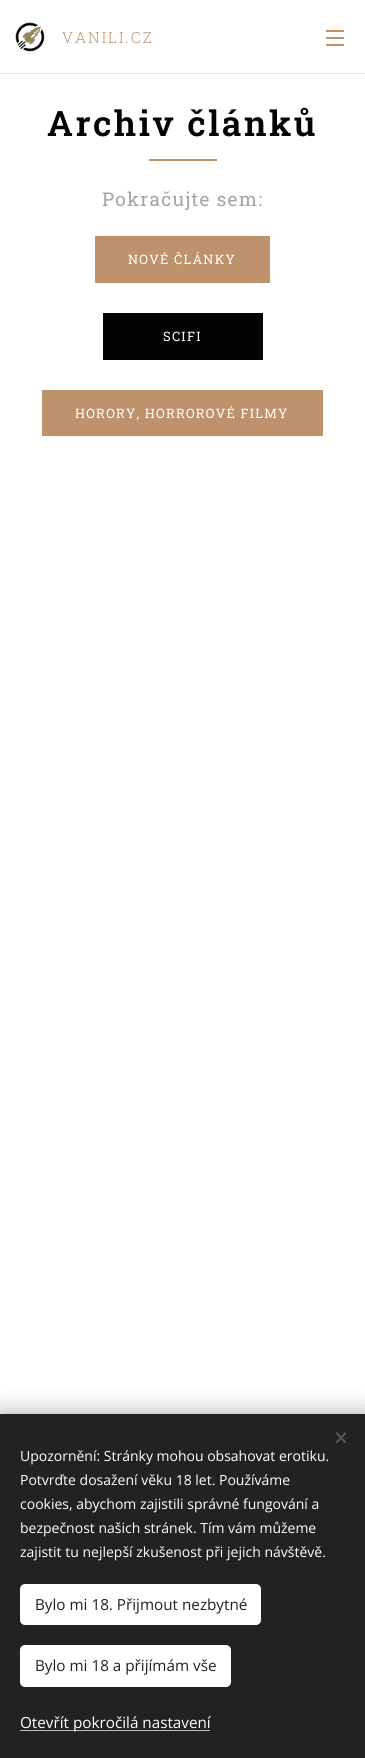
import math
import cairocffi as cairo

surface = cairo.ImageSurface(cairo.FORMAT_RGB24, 365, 1758)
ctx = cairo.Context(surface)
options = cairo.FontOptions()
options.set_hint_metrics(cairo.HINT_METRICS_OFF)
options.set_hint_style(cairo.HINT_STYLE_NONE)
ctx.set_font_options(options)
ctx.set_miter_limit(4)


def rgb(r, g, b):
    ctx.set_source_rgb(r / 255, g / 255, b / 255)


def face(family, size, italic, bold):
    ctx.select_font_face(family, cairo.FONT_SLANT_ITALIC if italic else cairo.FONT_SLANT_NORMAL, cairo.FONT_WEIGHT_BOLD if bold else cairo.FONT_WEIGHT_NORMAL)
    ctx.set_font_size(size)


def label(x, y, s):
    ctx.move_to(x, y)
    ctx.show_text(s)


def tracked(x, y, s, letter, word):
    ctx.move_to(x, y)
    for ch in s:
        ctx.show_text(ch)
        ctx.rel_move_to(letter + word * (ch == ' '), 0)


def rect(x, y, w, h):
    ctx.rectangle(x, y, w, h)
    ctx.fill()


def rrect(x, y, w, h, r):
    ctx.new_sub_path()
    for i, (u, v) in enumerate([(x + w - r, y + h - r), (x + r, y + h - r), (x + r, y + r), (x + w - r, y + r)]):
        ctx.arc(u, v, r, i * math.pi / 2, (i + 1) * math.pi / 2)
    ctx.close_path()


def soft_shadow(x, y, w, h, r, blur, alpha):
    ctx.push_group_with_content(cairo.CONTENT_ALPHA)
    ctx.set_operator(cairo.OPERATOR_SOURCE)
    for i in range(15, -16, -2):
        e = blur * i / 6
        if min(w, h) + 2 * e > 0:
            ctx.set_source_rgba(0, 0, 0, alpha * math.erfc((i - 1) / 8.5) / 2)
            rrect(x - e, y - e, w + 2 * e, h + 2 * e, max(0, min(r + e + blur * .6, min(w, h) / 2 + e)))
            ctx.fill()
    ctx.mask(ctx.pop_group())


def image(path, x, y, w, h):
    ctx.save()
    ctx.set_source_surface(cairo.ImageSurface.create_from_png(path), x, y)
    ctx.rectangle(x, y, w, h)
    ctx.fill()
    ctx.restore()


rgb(255, 255, 255)
ctx.paint()
image('image0.png', 15, 22, 30, 30)
face('Roboto Slab Light', 15.25, 0, 0)
rgb(189, 146, 109)
tracked(62, 43, 'VANILI.CZ', 2, 0)
rect(326, 37, 18, 2)
rect(326, 30, 18, 2)
rect(326, 44, 18, 2)
rgb(232, 232, 232)
rect(0, 73, 365, 1)
face('Roboto Slab SemiBold', 35, 0, 0)
rgb(3, 3, 3)
tracked(47, 136, 'Archiv článků', 2.5, 0)
rgb(189, 146, 109)
rect(149, 159, 68, 2)
face('Roboto Slab', 19, 0, 0)
rgb(164, 164, 164)
tracked(102, 206, 'Pokračujte sem:', 1.3, 0)
rgb(189, 146, 109)
rect(95, 236, 175, 47)
face('Roboto Slab', 13, 0, 0)
rgb(255, 255, 255)
tracked(128, 264, 'NOVÉ ČLÁNKY', 1.25, 0)
rgb(3, 3, 3)
rect(103, 313, 160, 47)
rgb(255, 255, 255)
tracked(163, 341, 'SCIFI', 1.25, 0)
rgb(189, 146, 109)
rect(42, 390, 281, 46)
rgb(255, 255, 255)
tracked(75, 418, 'HORORY, HORROROVÉ FILMY', 1.25, 0)
rgb(0, 0, 0)
soft_shadow(0, 1414, 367, 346, 0, 12.5, 0.33)
rgb(34, 34, 34)
rect(0, 1414, 365, 344)
rgb(85, 85, 85)
ctx.new_path()
ctx.move_to(335.5, 1442)
ctx.line_to(345, 1432)
ctx.line_to(346.5, 1433.5)
ctx.line_to(337, 1443.5)
ctx.close_path()
ctx.fill()
ctx.new_path()
ctx.move_to(337, 1432)
ctx.line_to(346.5, 1442)
ctx.line_to(345, 1443.5)
ctx.line_to(335.5, 1433.5)
ctx.close_path()
ctx.fill()
face('Open Sans', 14, 0, 0)
rgb(255, 255, 255)
label(20, 1461, 'Upozornění: Stránky mohou obsahovat erotiku.')
label(20, 1485, 'Potvrďte dosažení věku 18 let. Používáme')
label(20, 1509, 'cookies, abychom zajistili správné fungování a')
label(20, 1533, 'bezpečnost našich stránek. Tím vám můžeme')
label(20, 1557, 'zajistit tu nejlepší zkušenost při jejich návštěvě.')
rrect(20, 1584, 241, 41, 5)
ctx.fill()
face('Open Sans', 15.25, 0, 0)
rgb(34, 34, 34)
label(35, 1610, 'Bylo mi 18. Přijmout nezbytné')
rgb(255, 255, 255)
rrect(20, 1645, 211, 42, 5)
ctx.fill()
rgb(34, 34, 34)
label(35, 1671, 'Bylo mi 18 a přijímám vše')
rgb(189, 189, 189)
rect(20, 1730, 190, 1)
rgb(255, 255, 255)
label(20, 1728, 'Otevřít pokročilá nastavení')
surface.write_to_png('render.png')
